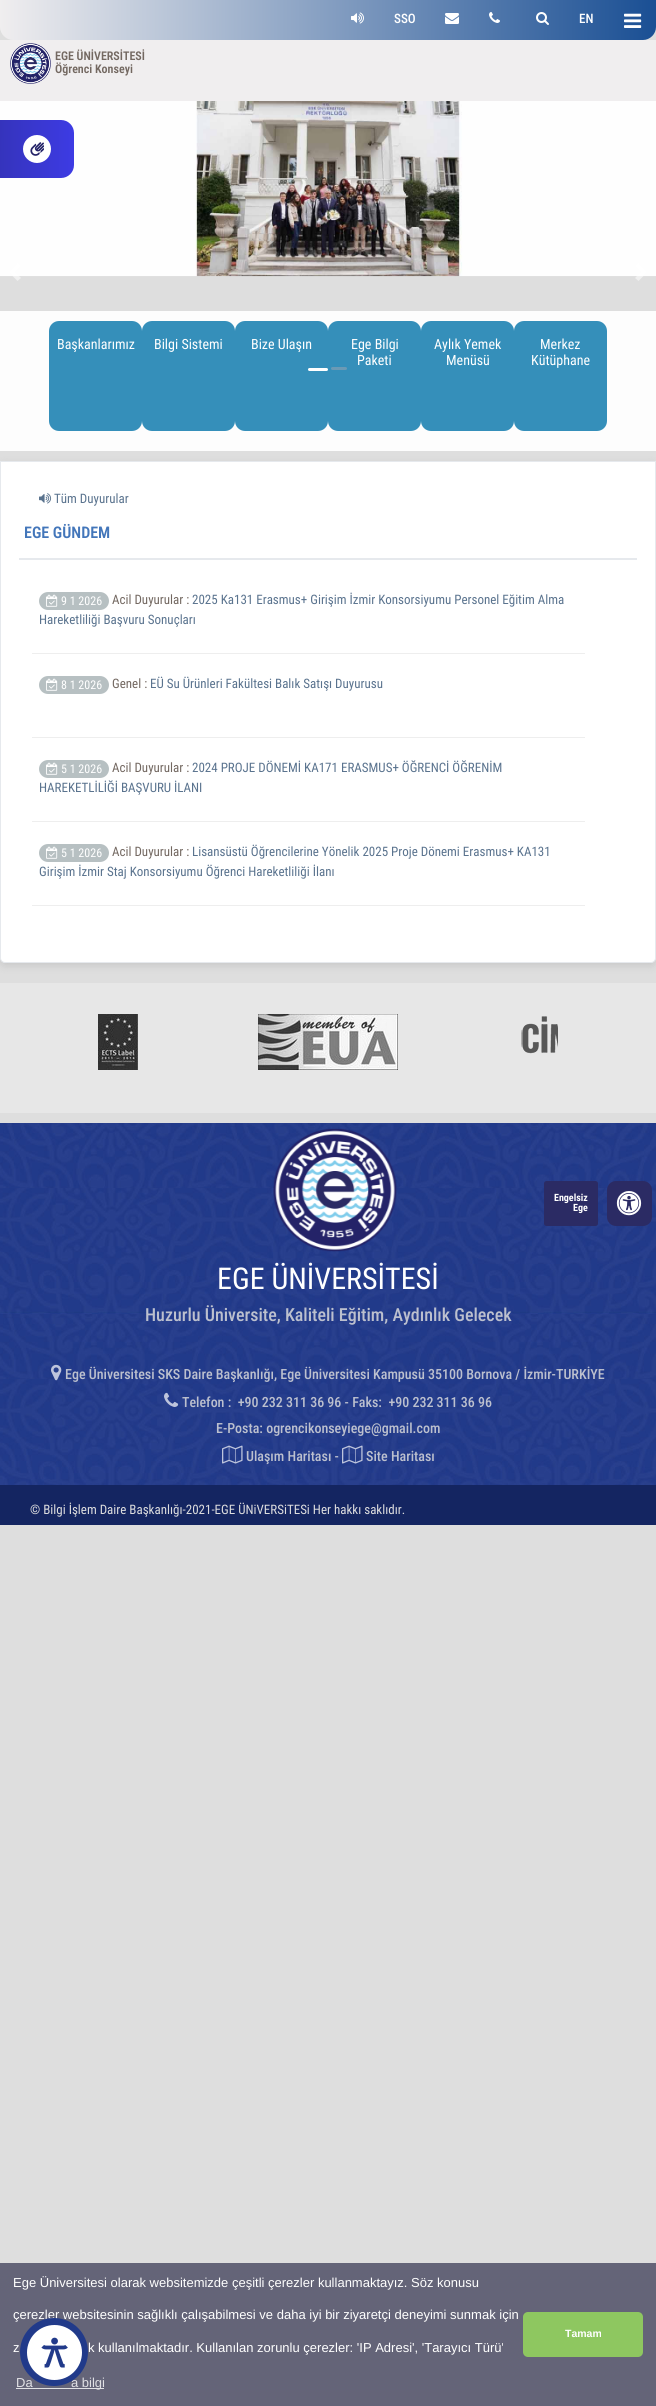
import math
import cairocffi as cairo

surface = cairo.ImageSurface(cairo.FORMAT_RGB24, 656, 2406)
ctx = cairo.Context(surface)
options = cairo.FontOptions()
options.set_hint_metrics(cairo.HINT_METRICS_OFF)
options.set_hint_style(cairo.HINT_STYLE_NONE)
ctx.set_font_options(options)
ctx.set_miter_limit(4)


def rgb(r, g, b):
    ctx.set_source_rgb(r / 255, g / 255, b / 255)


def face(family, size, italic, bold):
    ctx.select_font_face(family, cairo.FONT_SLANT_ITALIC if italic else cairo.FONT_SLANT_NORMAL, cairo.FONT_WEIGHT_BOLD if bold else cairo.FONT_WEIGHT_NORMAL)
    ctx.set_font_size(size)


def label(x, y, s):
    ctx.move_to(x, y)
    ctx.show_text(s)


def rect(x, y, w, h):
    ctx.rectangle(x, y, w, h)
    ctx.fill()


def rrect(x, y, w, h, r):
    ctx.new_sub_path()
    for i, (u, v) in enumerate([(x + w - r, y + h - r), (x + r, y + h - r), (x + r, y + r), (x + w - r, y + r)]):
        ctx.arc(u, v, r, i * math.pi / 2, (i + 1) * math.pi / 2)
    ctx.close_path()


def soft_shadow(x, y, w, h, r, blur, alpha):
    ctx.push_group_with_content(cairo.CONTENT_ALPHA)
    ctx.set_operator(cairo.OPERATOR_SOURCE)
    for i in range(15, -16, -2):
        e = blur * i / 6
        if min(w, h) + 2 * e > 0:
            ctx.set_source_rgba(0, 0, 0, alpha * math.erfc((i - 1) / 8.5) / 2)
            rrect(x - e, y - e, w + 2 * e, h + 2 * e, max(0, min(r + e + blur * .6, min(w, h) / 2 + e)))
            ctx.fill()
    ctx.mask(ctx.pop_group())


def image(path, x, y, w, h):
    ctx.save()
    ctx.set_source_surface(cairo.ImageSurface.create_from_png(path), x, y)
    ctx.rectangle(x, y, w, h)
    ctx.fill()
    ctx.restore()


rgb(222, 222, 222)
ctx.paint()
gradient = cairo.LinearGradient(0, 20, 656, 20)
gradient.add_color_stop_rgba(0, 0.941, 0.933, 0.937, 1)
gradient.add_color_stop_rgba(1, 0.102, 0.31, 0.58, 1)
ctx.set_source(gradient)
ctx.new_path()
ctx.move_to(0, 0)
ctx.line_to(656, 0)
ctx.line_to(656, 27)
ctx.curve_to(656, 34, 650, 40, 643, 40)
ctx.line_to(13, 40)
ctx.curve_to(6, 40, 0, 34, 0, 27)
ctx.close_path()
ctx.fill()
image('image0.png', 351, 12, 13, 12)
face('Roboto Condensed Medium', 13, 0, 0)
rgb(255, 255, 255)
label(394, 23, 'SSO')
image('image1.png', 445, 13, 14, 11)
image('image2.png', 489, 12, 11, 11)
image('image3.png', 536, 12, 13, 13)
label(579, 23, 'EN')
image('image4.png', 624, 13, 18, 15)
rgb(240, 238, 239)
rect(0, 40, 656, 61)
image('image5.png', 10, 43, 41, 41)
face('Roboto Condensed SemiBold', 12, 0, 0)
rgb(115, 104, 97)
label(55, 60, 'EGE ÜNİVERSİTESİ')
label(55, 73, 'Öğrenci Konseyi')
image('image6.png', 0, 101, 656, 176)
rgb(253, 253, 253)
rect(0, 311, 656, 140)
rgb(53, 143, 186)
rrect(235, 321, 93, 110, 10)
ctx.fill()
rgb(255, 255, 255)
rrect(308, 368, 20, 3, 1.5)
ctx.fill()
rgb(53, 143, 186)
rrect(328, 321, 93, 110, 10)
ctx.fill()
rgb(107, 154, 181)
rrect(331, 367, 16, 3, 1.5)
ctx.fill()
ctx.set_source_rgba(1, 1, 1, 0.5)
ctx.new_path()
ctx.move_to(21, 266)
ctx.line_to(15, 272)
ctx.line_to(21, 278)
ctx.line_to(17.5, 281)
ctx.line_to(8.5, 272)
ctx.line_to(17.5, 262.5)
ctx.close_path()
ctx.fill()
ctx.new_path()
ctx.move_to(647.5, 272)
ctx.line_to(638.5, 281)
ctx.line_to(635, 278)
ctx.line_to(641, 272)
ctx.line_to(635, 266)
ctx.line_to(638.5, 262.5)
ctx.close_path()
ctx.fill()
rgb(53, 143, 186)
rrect(49, 321, 93, 110, 10)
ctx.fill()
face('Roboto Condensed', 14, 0, 0)
rgb(255, 255, 255)
label(57, 349, 'Başkanlarımız')
rgb(53, 143, 186)
rrect(142, 321, 93, 110, 10)
ctx.fill()
rgb(255, 255, 255)
label(154, 349, 'Bilgi Sistemi')
label(251, 349, 'Bize Ulaşın')
label(351, 349, 'Ege Bilgi')
label(357, 365, 'Paketi')
rgb(53, 143, 186)
rrect(421, 321, 93, 110, 10)
ctx.fill()
rgb(255, 255, 255)
label(434, 349, 'Aylık Yemek')
label(446, 365, 'Menüsü')
rgb(53, 143, 186)
rrect(514, 321, 93, 110, 10)
ctx.fill()
rgb(255, 255, 255)
label(540, 349, 'Merkez')
label(531, 365, 'Kütüphane')
rgb(0, 0, 0)
soft_shadow(0, 464, 656, 502, 5, 4.5, 0.1)
rgb(255, 255, 255)
ctx.new_path()
ctx.move_to(0.5, 461.5)
ctx.line_to(655.5, 461.5)
ctx.line_to(655.5, 958)
ctx.curve_to(655.5, 960.5, 653.5, 962.5, 651, 962.5)
ctx.line_to(5, 962.5)
ctx.curve_to(2.5, 962.5, 0.5, 960.5, 0.5, 958)
ctx.close_path()
ctx.fill_preserve()
rgb(230, 233, 237)
ctx.set_line_width(1)
ctx.stroke()
rect(19, 558, 618, 2)
image('image7.png', 39, 493, 13, 11)
face('Roboto Condensed', 13, 0, 0)
rgb(90, 115, 142)
label(54, 503, 'Tüm Duyurular')
face('Roboto Condensed SemiBold', 16, 0, 0)
rgb(67, 118, 186)
label(24, 538, 'EGE GÜNDEM')
rgb(238, 238, 238)
rect(32, 653, 553, 1)
rgb(183, 192, 194)
rrect(39, 592, 70, 18, 9)
ctx.fill()
image('image8.png', 46, 594, 12, 13)
face('Roboto Condensed', 12, 0, 0)
rgb(255, 255, 255)
label(61, 605, '9 1 2026')
face('Roboto Condensed', 13, 0, 0)
rgb(115, 104, 97)
label(112, 604, 'Acil Duyurular :')
rgb(90, 115, 142)
label(192, 604, '2025 Ka131 Erasmus+ Girişim İzmir Konsorsiyumu Personel Eğitim Alma')
label(39, 624, 'Hareketliliği Başvuru Sonuçları')
rgb(238, 238, 238)
rect(32, 737, 553, 1)
rgb(183, 192, 194)
rrect(39, 676, 70, 18, 9)
ctx.fill()
image('image8.png', 46, 678, 12, 13)
face('Roboto Condensed', 12, 0, 0)
rgb(255, 255, 255)
label(61, 689, '8 1 2026')
face('Roboto Condensed', 13, 0, 0)
rgb(115, 104, 97)
label(112, 688, 'Genel :')
rgb(90, 115, 142)
label(150, 688, 'EÜ Su Ürünleri Fakültesi Balık Satışı Duyurusu')
rgb(238, 238, 238)
rect(32, 821, 553, 1)
rgb(183, 192, 194)
rrect(39, 760, 70, 18, 9)
ctx.fill()
image('image8.png', 46, 762, 12, 13)
face('Roboto Condensed', 12, 0, 0)
rgb(255, 255, 255)
label(61, 773, '5 1 2026')
face('Roboto Condensed', 13, 0, 0)
rgb(115, 104, 97)
label(112, 772, 'Acil Duyurular :')
rgb(90, 115, 142)
label(192, 772, '2024 PROJE DÖNEMİ KA171 ERASMUS+ ÖĞRENCİ ÖĞRENİM')
label(39, 792, 'HAREKETLİLİĞİ BAŞVURU İLANI')
rgb(238, 238, 238)
rect(32, 905, 553, 1)
rgb(183, 192, 194)
rrect(39, 844, 70, 18, 9)
ctx.fill()
image('image8.png', 46, 846, 12, 13)
face('Roboto Condensed', 12, 0, 0)
rgb(255, 255, 255)
label(61, 857, '5 1 2026')
face('Roboto Condensed', 13, 0, 0)
rgb(115, 104, 97)
label(112, 856, 'Acil Duyurular :')
rgb(90, 115, 142)
label(192, 856, 'Lisansüstü Öğrencilerine Yönelik 2025 Proje Dönemi Erasmus+ KA131')
label(39, 876, 'Girişim İzmir Staj Konsorsiyumu Öğrenci Hareketliliği İlanı')
rgb(231, 231, 231)
rect(0, 983, 656, 130)
image('image9.png', 98, 1014, 40, 56)
image('image10.png', 258, 1014, 140, 56)
image('image11.png', 521, 1016, 37, 38)
image('image12.png', 0, 1123, 656, 362)
image('image13.png', 273, 1128, 124, 124)
face('Roboto Condensed', 30, 0, 0)
rgb(255, 255, 255)
label(217, 1289, 'EGE ÜNİVERSİTESİ')
face('Roboto Condensed Medium', 18, 0, 0)
rgb(188, 192, 206)
label(145, 1321, 'Huzurlu Üniversite, Kaliteli Eğitim, Aydınlık Gelecek')
image('image14.png', 51, 1364, 11, 17)
face('Roboto Condensed Medium', 14, 0, 0)
label(65, 1379, 'Ege Üniversitesi SKS Daire Başkanlığı, Ege Üniversitesi Kampusü 35100 Bornova / İzmir-TURKİYE')
image('image15.png', 164, 1392, 15, 15)
label(182, 1407, 'Telefon :  +90 232 311 36 96 - Faks:  +90 232 311 36 96')
label(216, 1433, 'E-Posta: ogrencikonseyiege@gmail.com')
image('image16.png', 222, 1445, 21, 19)
label(246, 1461, 'Ulaşım Haritası -')
image('image17.png', 342, 1445, 21, 19)
label(366, 1461, 'Site Haritası')
rgb(20, 37, 97)
rect(0, 1485, 656, 40)
face('Roboto Condensed', 13, 0, 0)
rgb(221, 221, 222)
label(30, 1514, '© Bilgi İşlem Daire Başkanlığı-2021-EGE ÜNiVERSiTESi Her hakkı saklıdır.')
gradient = cairo.LinearGradient(-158, 148, 75, 150)
gradient.add_color_stop_rgba(0, 0.141, 0.137, 0.408, 1)
gradient.add_color_stop_rgba(0.99, 0.239, 0.231, 0.89, 1)
ctx.set_source(gradient)
rrect(-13, 120, 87, 58, 13)
ctx.fill()
rgb(255, 255, 255)
ctx.arc(37, 149, 14, 0, 2 * math.pi)
ctx.fill()
image('image18.png', 30, 142, 14, 14)
rgb(43, 43, 100)
rrect(607, 1181, 45, 45, 9)
ctx.fill()
rrect(544, 1181, 54, 45, 2.5)
ctx.fill()
face('Roboto Condensed', 10, 0, 1)
rgb(255, 255, 255)
label(554, 1201, 'Engelsiz')
label(573, 1211, 'Ege')
image('image19.png', 616, 1191, 26, 25)
rgb(100, 100, 120)
rect(0, 2263, 656, 143)
face('Liberation Sans', 13, 0, 0)
rgb(255, 255, 255)
label(13, 2287, 'Ege Üniversitesi olarak websitemizde çeşitli çerezler kullanmaktayız. Söz konusu')
label(13, 2319, 'çerezler websitesinin sağlıklı çalışabilmesi ve daha iyi bir ziyaretçi deneyimi sunmak için')
label(13, 2352, 'z')
label(88, 2352, 'k kullanılmaktadır. Kullanılan zorunlu çerezler: \'IP Adresi\', \'Tarayıcı Türü\'')
rgb(224, 224, 228)
label(16, 2387, 'Da')
rect(16, 2388, 88, 1)
label(71, 2387, 'a bilgi')
rgb(142, 199, 96)
rrect(523, 2312, 120, 45, 5)
ctx.fill()
face('Liberation Sans', 10.5, 0, 1)
rgb(255, 255, 255)
label(565, 2337, 'Tamam')
rgb(33, 58, 138)
ctx.new_path()
ctx.arc(54, 2352, 34, 0, 2 * math.pi)
ctx.fill()
image('image20.png', 27, 2325, 55, 55)
surface.write_to_png('render.png')
